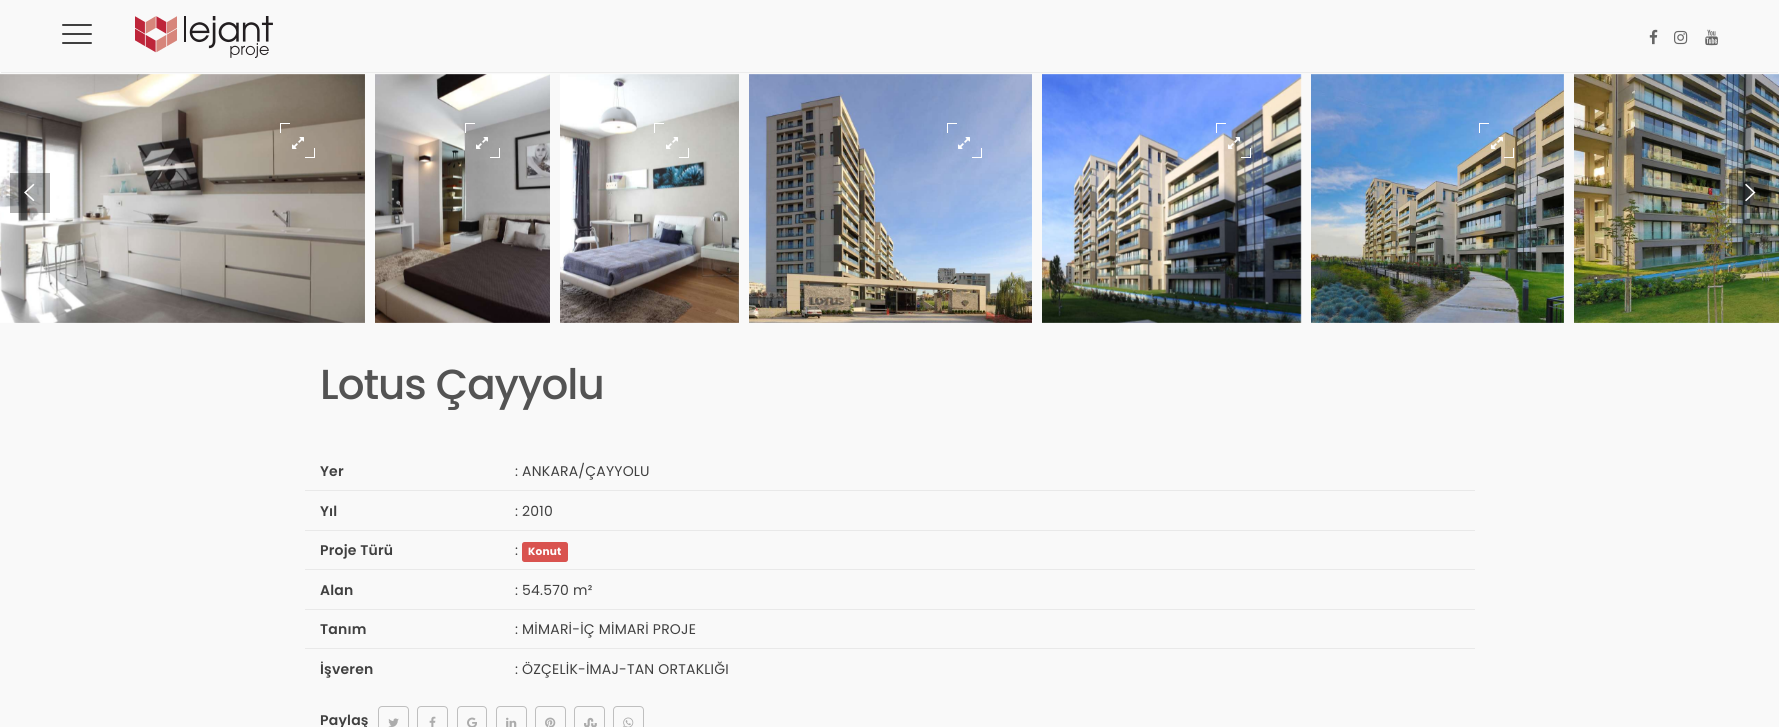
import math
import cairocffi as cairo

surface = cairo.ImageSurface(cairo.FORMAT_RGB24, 1779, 727)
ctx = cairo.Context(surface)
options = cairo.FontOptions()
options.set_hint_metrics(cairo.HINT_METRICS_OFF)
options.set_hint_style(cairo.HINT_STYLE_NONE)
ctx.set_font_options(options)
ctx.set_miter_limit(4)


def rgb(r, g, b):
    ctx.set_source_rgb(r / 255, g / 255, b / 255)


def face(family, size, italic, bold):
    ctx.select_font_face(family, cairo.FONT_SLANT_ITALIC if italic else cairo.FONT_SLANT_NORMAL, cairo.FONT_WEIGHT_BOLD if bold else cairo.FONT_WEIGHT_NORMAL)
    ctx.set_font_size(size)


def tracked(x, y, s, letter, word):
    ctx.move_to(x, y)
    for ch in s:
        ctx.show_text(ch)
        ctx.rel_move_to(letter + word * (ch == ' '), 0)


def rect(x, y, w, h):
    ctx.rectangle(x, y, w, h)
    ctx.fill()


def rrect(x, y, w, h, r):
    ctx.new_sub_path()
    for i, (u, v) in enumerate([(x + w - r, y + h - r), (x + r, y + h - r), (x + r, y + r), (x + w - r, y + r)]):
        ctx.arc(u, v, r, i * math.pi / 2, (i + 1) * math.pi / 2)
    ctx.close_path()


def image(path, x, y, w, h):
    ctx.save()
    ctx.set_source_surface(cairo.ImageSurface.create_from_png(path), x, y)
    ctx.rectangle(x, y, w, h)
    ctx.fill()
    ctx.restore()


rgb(249, 249, 249)
ctx.paint()
rgb(255, 255, 255)
ctx.new_path()
ctx.move_to(1779, 73)
ctx.line_to(0, 73)
ctx.line_to(1, 72)
ctx.line_to(1778, 72)
ctx.close_path()
ctx.fill()
rgb(64, 64, 64)
rrect(62, 24, 30, 2, 1)
ctx.fill()
rrect(62, 33, 30, 2, 1)
ctx.fill()
rrect(62, 42, 30, 2, 1)
ctx.fill()
image('image0.png', 135, 16, 138, 42)
image('image1.png', 1649, 29, 9, 16)
image('image2.png', 1674, 30, 14, 15)
image('image3.png', 1705, 29, 13, 17)
rgb(236, 236, 236)
rect(1, 72, 1777, 1)
image('image4.png', 0, 74, 365, 249)
rgb(255, 255, 255)
rect(280, 123, 10, 1)
rect(280, 123, 1, 10)
image('image5.png', 292, 137, 12, 12)
rect(314, 148, 1, 10)
rect(305, 157, 10, 1)
image('image6.png', 375, 74, 175, 249)
rect(465, 123, 10, 1)
rect(465, 123, 1, 10)
image('image7.png', 476, 137, 12, 12)
rect(499, 148, 1, 10)
rect(490, 157, 10, 1)
image('image8.png', 560, 74, 179, 249)
rect(654, 123, 10, 1)
rect(654, 123, 1, 10)
image('image9.png', 666, 137, 12, 12)
rect(688, 148, 1, 10)
rect(679, 157, 10, 1)
image('image10.png', 749, 74, 283, 249)
rect(947, 123, 10, 1)
rect(947, 123, 1, 10)
image('image11.png', 958, 137, 12, 12)
rect(981, 148, 1, 10)
rect(972, 157, 10, 1)
image('image12.png', 1042, 74, 260, 249)
rect(1216, 123, 10, 1)
rect(1216, 123, 1, 10)
image('image13.png', 1228, 137, 12, 12)
rect(1250, 148, 1, 10)
rect(1241, 157, 10, 1)
image('image14.png', 1311, 74, 253, 249)
rect(1479, 123, 10, 1)
rect(1479, 123, 1, 10)
image('image15.png', 1491, 137, 12, 12)
rect(1513, 148, 1, 10)
rect(1504, 157, 10, 1)
image('image16.png', 1574, 74, 205, 249)
ctx.set_source_rgba(0, 0, 0, 0.31)
rect(10, 173, 40, 40)
image('image17.png', 24, 183, 11, 19)
rect(1729, 173, 40, 40)
image('image18.png', 1745, 183, 11, 19)
face('Poppins Medium', 42, 0, 0)
rgb(83, 83, 83)
tracked(320, 399, 'Lotus Çayyolu', -1, 0)
rgb(233, 233, 233)
rect(305, 490, 1170, 1)
face('Poppins SemiBold', 14, 0, 0)
rgb(64, 64, 64)
tracked(320, 476, 'Yer', 0.2, 0)
face('Poppins', 14, 0, 0)
tracked(515, 476, ': ANKARA/ÇAYYOLU', 0.2, 0)
rgb(233, 233, 233)
rect(305, 530, 1170, 1)
face('Poppins SemiBold', 14, 0, 0)
rgb(64, 64, 64)
tracked(320, 516, 'Yıl', 0.2, 0)
face('Poppins', 14, 0, 0)
tracked(515, 516, ': 2010', 0.2, 0)
rgb(233, 233, 233)
rect(305, 569, 1170, 1)
face('Poppins SemiBold', 14, 0, 0)
rgb(64, 64, 64)
tracked(320, 555, 'Proje Türü', 0.2, 0)
face('Poppins', 14, 0, 0)
tracked(515, 555, ':', 0.2, 0)
rgb(217, 83, 79)
rrect(522, 542, 46, 20, 2.5)
ctx.fill()
face('Poppins', 10.5, 0, 1)
rgb(255, 255, 255)
tracked(528, 555, 'Konut', 0.2, 0)
rgb(233, 233, 233)
rect(305, 609, 1170, 1)
face('Poppins SemiBold', 14, 0, 0)
rgb(64, 64, 64)
tracked(320, 595, 'Alan', 0.2, 0)
face('Poppins', 14, 0, 0)
tracked(515, 595, ': 54.570 m²', 0.2, 0)
rgb(233, 233, 233)
rect(305, 648, 1170, 1)
face('Poppins SemiBold', 14, 0, 0)
rgb(64, 64, 64)
tracked(320, 634, 'Tanım', 0.2, 0)
face('Poppins', 14, 0, 0)
tracked(515, 634, ': MİMARİ-İÇ MİMARİ PROJE', 0.2, 0)
face('Poppins SemiBold', 14, 0, 0)
tracked(320, 674, 'İşveren', 0.2, 0)
face('Poppins', 14, 0, 0)
tracked(515, 674, ': ÖZÇELİK-İMAJ-TAN ORTAKLIĞI', 0.2, 0)
face('Poppins SemiBold', 14, 0, 0)
tracked(320, 725, 'Paylaş', 0.2, 0)
rrect(378.5, 706.5, 30, 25, 3.5)
rgb(191, 191, 191)
ctx.set_line_width(1)
ctx.stroke()
image('image19.png', 388, 718, 11, 9)
rrect(417.5, 706.5, 30, 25, 3.5)
ctx.stroke()
image('image20.png', 429, 716, 7, 11)
rrect(457.5, 706.5, 29, 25, 3.5)
ctx.stroke()
image('image21.png', 467, 717, 10, 10)
rrect(496.5, 706.5, 30, 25, 3.5)
ctx.stroke()
image('image22.png', 506, 717, 11, 10)
rrect(535.5, 706.5, 30, 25, 3.5)
ctx.stroke()
image('image23.png', 545, 717, 11, 10)
rrect(574.5, 706.5, 30, 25, 3.5)
ctx.stroke()
image('image24.png', 584, 717, 13, 10)
rrect(613.5, 706.5, 30, 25, 3.5)
ctx.stroke()
image('image25.png', 623, 717, 11, 10)
surface.write_to_png('render.png')
